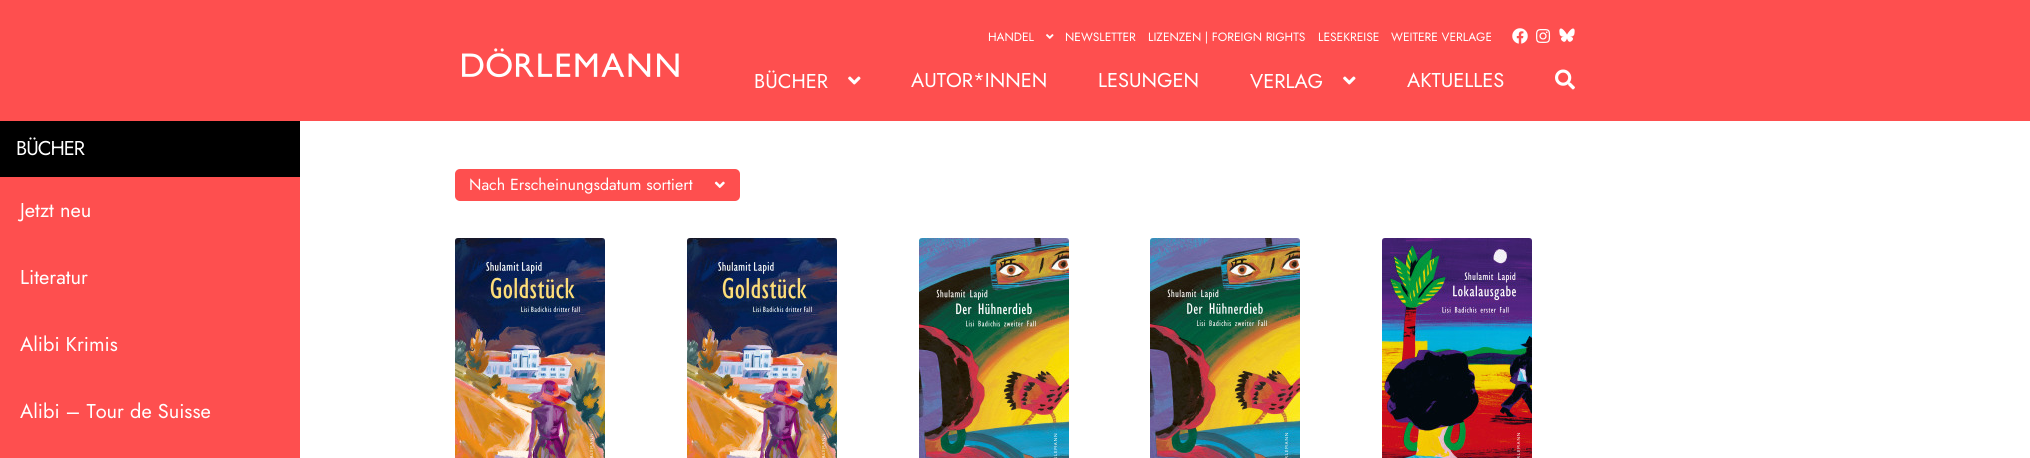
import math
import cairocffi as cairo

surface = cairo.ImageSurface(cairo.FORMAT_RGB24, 2030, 458)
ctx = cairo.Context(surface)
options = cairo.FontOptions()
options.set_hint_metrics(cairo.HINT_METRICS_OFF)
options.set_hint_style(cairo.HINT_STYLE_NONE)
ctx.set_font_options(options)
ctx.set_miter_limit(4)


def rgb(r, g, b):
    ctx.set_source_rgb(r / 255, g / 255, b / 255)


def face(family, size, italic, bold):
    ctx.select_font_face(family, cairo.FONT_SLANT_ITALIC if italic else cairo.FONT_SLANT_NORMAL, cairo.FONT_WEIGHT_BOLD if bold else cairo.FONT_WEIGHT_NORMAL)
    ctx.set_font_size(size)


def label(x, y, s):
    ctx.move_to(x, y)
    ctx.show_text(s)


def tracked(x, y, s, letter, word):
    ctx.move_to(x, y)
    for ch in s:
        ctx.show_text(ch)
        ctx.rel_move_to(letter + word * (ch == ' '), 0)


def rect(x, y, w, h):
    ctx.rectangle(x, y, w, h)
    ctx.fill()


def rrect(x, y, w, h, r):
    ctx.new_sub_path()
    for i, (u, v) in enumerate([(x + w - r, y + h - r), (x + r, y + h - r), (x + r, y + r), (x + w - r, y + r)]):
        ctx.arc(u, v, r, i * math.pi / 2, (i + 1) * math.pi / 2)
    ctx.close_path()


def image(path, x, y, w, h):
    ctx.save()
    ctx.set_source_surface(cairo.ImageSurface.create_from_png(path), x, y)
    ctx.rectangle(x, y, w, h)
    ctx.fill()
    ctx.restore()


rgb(255, 255, 255)
ctx.paint()
rgb(254, 79, 79)
rect(0, 0, 2030, 121)
face('Jost', 12, 0, 0)
rgb(255, 255, 255)
label(988, 41, 'HANDEL')
image('image0.png', 1046, 34, 8, 5)
label(1065, 41, 'NEWSLETTER')
label(1148, 41, 'LIZENZEN | FOREIGN RIGHTS')
label(1318, 41, 'LESEKREISE')
label(1391, 41, 'WEITERE VERLAGE')
image('image1.png', 1512, 28, 16, 16)
image('image2.png', 1536, 29, 15, 14)
image('image3.png', 1559, 28, 16, 14)
image('image4.png', 462, 48, 217, 30)
face('Jost', 20, 0, 0)
label(754, 88, 'BÜCHER')
image('image5.png', 848, 76, 13, 9)
label(911, 87, 'AUTOR*INNEN')
label(1098, 87, 'LESUNGEN')
label(1250, 88, 'VERLAG')
image('image5.png', 1343, 76, 13, 9)
label(1407, 87, 'AKTUELLES')
image('image6.png', 1555, 69, 20, 21)
rgb(0, 0, 0)
rect(0, 121, 300, 56)
rgb(255, 255, 255)
tracked(16, 155, 'BÜCHER', -1, 0)
rgb(254, 79, 79)
rect(0, 177, 300, 281)
rgb(255, 255, 255)
label(20, 217, 'Jetzt neu')
label(20, 284, 'Literatur')
label(20, 351, 'Alibi Krimis')
label(20, 418, 'Alibi – Tour de Suisse')
rgb(254, 79, 79)
rrect(455, 169, 285, 32, 5)
ctx.fill()
face('Jost', 16, 0, 0)
rgb(255, 255, 255)
label(469, 190, 'Nach Erscheinungsdatum sortiert')
image('image7.png', 714, 181, 11, 7)
image('image8.png', 455, 238, 150, 220)
image('image8.png', 687, 238, 150, 220)
image('image9.png', 919, 238, 150, 220)
image('image10.png', 1150, 238, 150, 220)
image('image11.png', 1382, 238, 150, 220)
surface.write_to_png('render.png')
